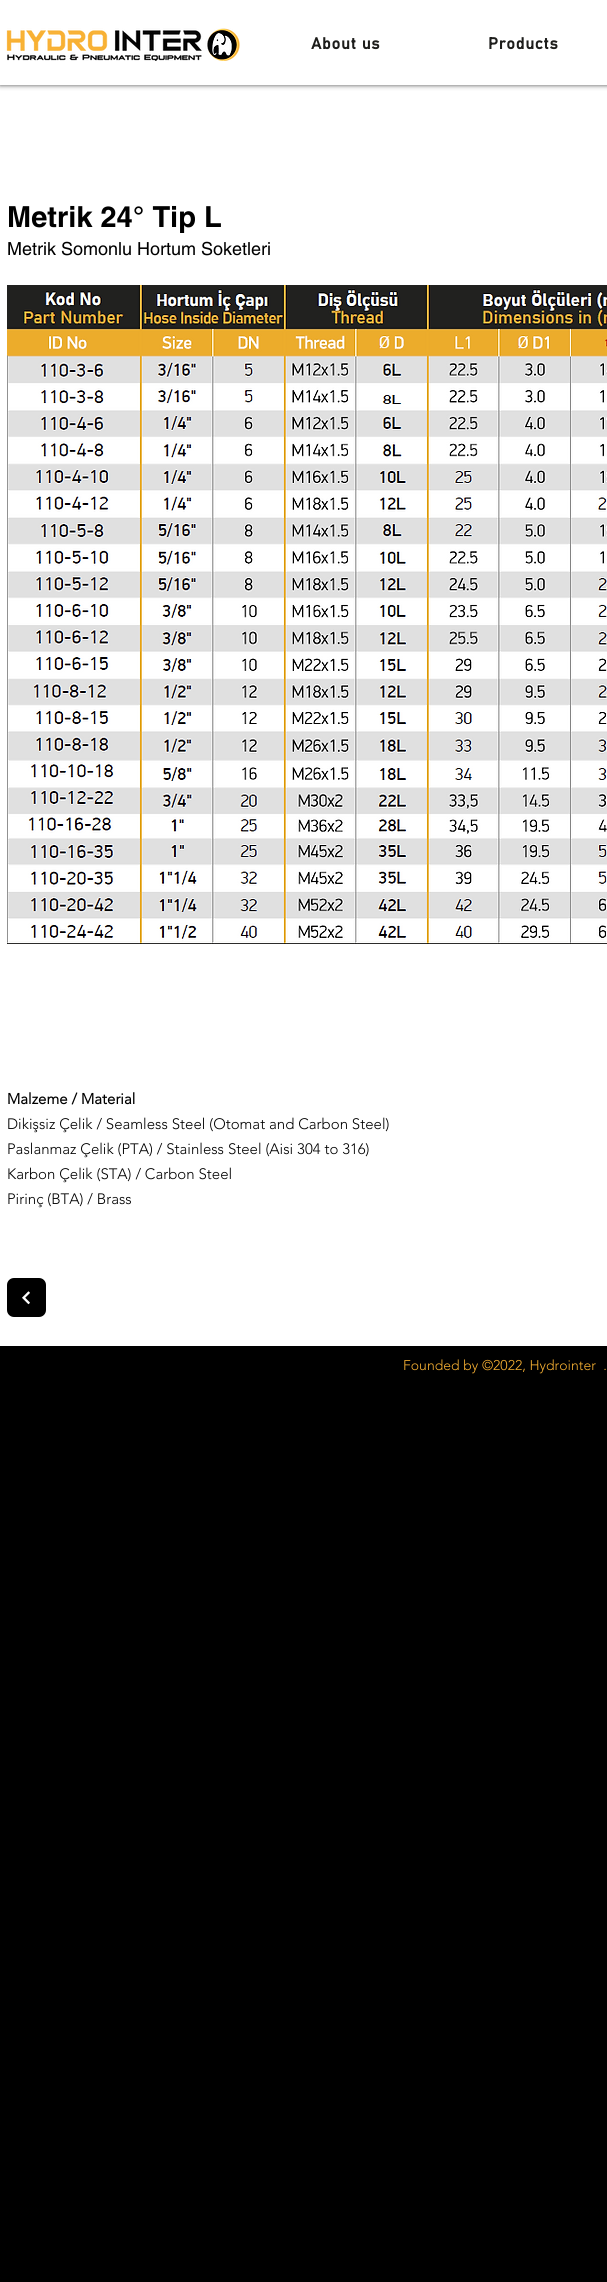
import math
import cairocffi as cairo

surface = cairo.ImageSurface(cairo.FORMAT_RGB24, 607, 2282)
ctx = cairo.Context(surface)
options = cairo.FontOptions()
options.set_hint_metrics(cairo.HINT_METRICS_OFF)
options.set_hint_style(cairo.HINT_STYLE_NONE)
ctx.set_font_options(options)
ctx.set_miter_limit(4)


def rgb(r, g, b):
    ctx.set_source_rgb(r / 255, g / 255, b / 255)


def face(family, size, italic, bold):
    ctx.select_font_face(family, cairo.FONT_SLANT_ITALIC if italic else cairo.FONT_SLANT_NORMAL, cairo.FONT_WEIGHT_BOLD if bold else cairo.FONT_WEIGHT_NORMAL)
    ctx.set_font_size(size)


def label(x, y, s):
    ctx.move_to(x, y)
    ctx.show_text(s)


def tracked(x, y, s, letter, word):
    ctx.move_to(x, y)
    for ch in s:
        ctx.show_text(ch)
        ctx.rel_move_to(letter + word * (ch == ' '), 0)


def rect(x, y, w, h):
    ctx.rectangle(x, y, w, h)
    ctx.fill()


def rrect(x, y, w, h, r):
    ctx.new_sub_path()
    for i, (u, v) in enumerate([(x + w - r, y + h - r), (x + r, y + h - r), (x + r, y + r), (x + w - r, y + r)]):
        ctx.arc(u, v, r, i * math.pi / 2, (i + 1) * math.pi / 2)
    ctx.close_path()


def soft_shadow(x, y, w, h, r, blur, alpha):
    ctx.push_group_with_content(cairo.CONTENT_ALPHA)
    ctx.set_operator(cairo.OPERATOR_SOURCE)
    for i in range(15, -16, -2):
        e = blur * i / 6
        if min(w, h) + 2 * e > 0:
            ctx.set_source_rgba(0, 0, 0, alpha * math.erfc((i - 1) / 8.5) / 2)
            rrect(x - e, y - e, w + 2 * e, h + 2 * e, max(0, min(r + e + blur * .6, min(w, h) / 2 + e)))
            ctx.fill()
    ctx.mask(ctx.pop_group())


def image(path, x, y, w, h):
    ctx.save()
    ctx.set_source_surface(cairo.ImageSurface.create_from_png(path), x, y)
    ctx.rectangle(x, y, w, h)
    ctx.fill()
    ctx.restore()


rgb(0, 0, 0)
ctx.paint()
rgb(255, 255, 255)
rect(0, 85, 607, 1261)
rgb(0, 0, 0)
soft_shadow(0, 0, 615, 85, 0, 2.5, 0.7)
rgb(255, 255, 255)
rect(0, 0, 607, 85)
image('image0.png', 6, 28, 234, 33)
face('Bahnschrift', 16, 0, 1)
rgb(29, 29, 27)
tracked(311, 49, 'About us', 0.75, 0)
tracked(488, 49, 'Products', 0.75, 0)
face('helvetica', 29, 0, 1)
rgb(0, 0, 0)
label(7, 227, 'Metrik 24° Tip L')
face('helvetica', 18, 0, 0)
label(7, 255, 'Metrik Somonlu Hortum Soketleri')
image('image1.png', 7, 285, 600, 659)
face('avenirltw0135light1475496', 15, 0, 1)
label(7, 1104, 'Malzeme / Material')
face('avenirltw0135light1475496 Light', 15, 0, 0)
label(7, 1129, 'Dikişsiz Çelik / Seamless Steel (Otomat and Carbon Steel)')
label(7, 1154, 'Paslanmaz Çelik (PTA) / Stainless Steel (Aisi 304 to 316)')
label(7, 1179, 'Karbon Çelik (STA) / Carbon Steel')
label(7, 1204, 'Pirinç (BTA) / Brass')
rrect(7, 1278, 39, 39, 7)
ctx.fill()
image('image2.png', 22, 1291, 8, 14)
face('avenirltw0135light1475496 Light', 14, 0, 0)
rgb(249, 178, 51)
label(403, 1370, 'Founded by ©2022, Hydrointer  .')
surface.write_to_png('render.png')
